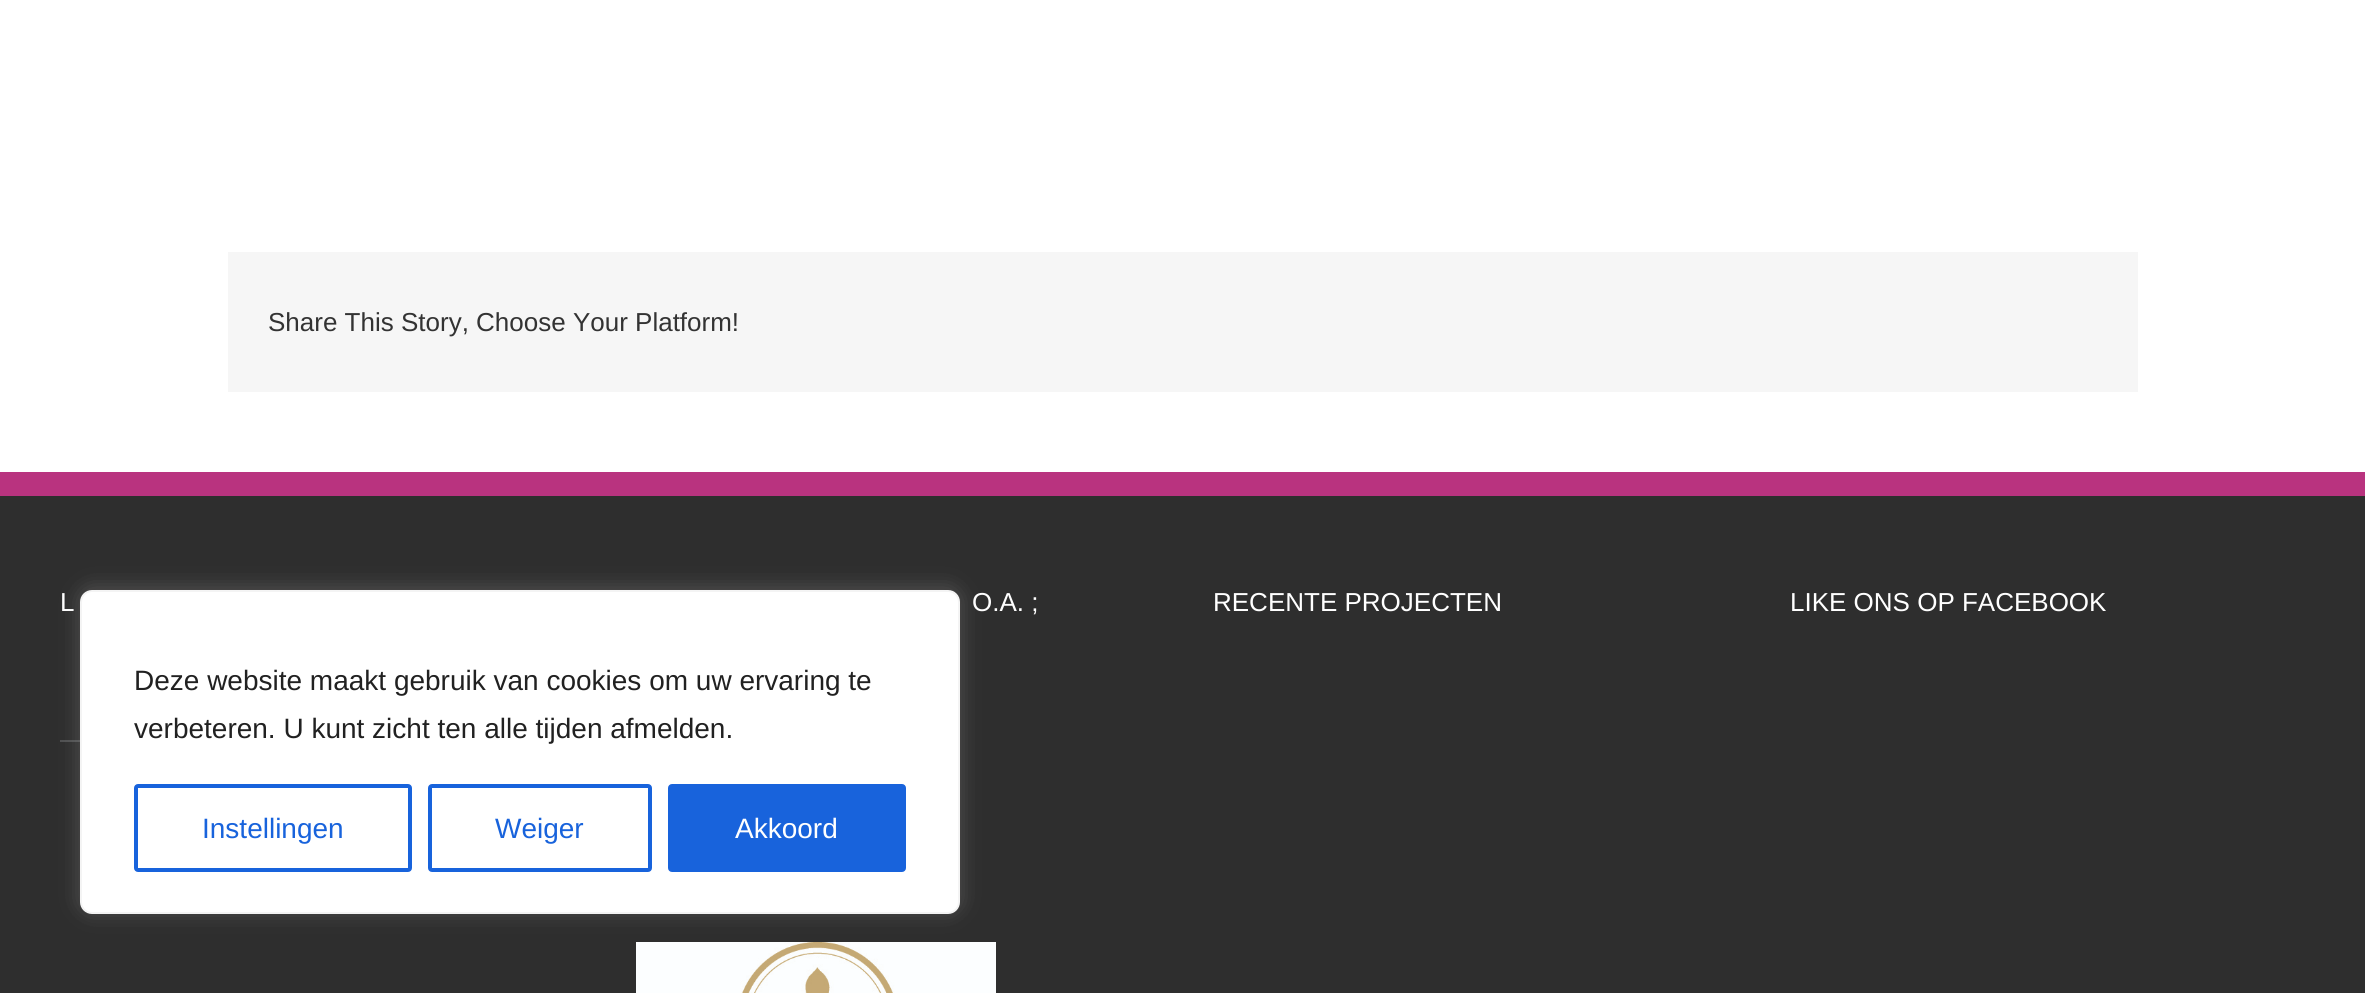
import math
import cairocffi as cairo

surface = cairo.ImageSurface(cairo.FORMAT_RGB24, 2365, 993)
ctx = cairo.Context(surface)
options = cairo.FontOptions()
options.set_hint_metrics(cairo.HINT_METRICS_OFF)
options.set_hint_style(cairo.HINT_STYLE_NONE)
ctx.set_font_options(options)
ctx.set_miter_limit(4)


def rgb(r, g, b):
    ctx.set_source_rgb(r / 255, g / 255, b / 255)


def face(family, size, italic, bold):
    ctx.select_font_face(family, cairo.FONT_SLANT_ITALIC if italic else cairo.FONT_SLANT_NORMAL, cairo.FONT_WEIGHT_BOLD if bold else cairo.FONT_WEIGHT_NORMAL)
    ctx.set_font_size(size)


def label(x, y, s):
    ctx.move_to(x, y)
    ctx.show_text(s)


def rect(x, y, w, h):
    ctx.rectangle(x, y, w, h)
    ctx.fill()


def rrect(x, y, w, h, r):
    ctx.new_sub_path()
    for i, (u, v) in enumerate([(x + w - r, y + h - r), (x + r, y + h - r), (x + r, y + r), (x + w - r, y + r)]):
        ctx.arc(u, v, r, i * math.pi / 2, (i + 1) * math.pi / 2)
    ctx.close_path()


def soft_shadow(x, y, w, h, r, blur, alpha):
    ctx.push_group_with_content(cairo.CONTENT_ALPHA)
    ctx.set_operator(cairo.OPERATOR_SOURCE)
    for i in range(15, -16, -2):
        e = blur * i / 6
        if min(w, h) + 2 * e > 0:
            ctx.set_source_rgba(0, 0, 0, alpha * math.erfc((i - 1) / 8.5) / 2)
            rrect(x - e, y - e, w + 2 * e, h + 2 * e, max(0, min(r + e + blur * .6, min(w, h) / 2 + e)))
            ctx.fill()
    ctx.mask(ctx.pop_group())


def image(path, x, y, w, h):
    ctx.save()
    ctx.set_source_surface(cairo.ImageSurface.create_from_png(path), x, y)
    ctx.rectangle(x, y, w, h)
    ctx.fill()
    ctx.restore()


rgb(255, 255, 255)
ctx.paint()
rgb(246, 246, 246)
rect(228, 252, 1910, 140)
face('Liberation Sans', 26, 0, 0)
rgb(51, 51, 51)
label(268, 331, 'Share This Story, Choose Your Platform!')
rgb(46, 46, 46)
rect(0, 496, 2365, 497)
rgb(185, 51, 127)
rect(0, 472, 2365, 24)
rgb(255, 255, 255)
label(60, 611, 'L')
rgb(80, 81, 82)
rect(60, 740, 20, 2)
rgb(255, 255, 255)
label(972, 611, 'O.A. ;')
image('image0.png', 636, 942, 360, 51)
label(1213, 611, 'RECENTE PROJECTEN')
label(1790, 611, 'LIKE ONS OP FACEBOOK')
rgb(172, 171, 171)
soft_shadow(80, 588, 880, 324, 12, 10, 0.3)
rgb(255, 255, 255)
rrect(81, 591, 878, 322, 11)
ctx.fill_preserve()
rgb(244, 244, 244)
ctx.stroke()
face('Liberation Sans', 28, 0, 0)
rgb(33, 33, 33)
label(134, 690, 'Deze website maakt gebruik van cookies om uw ervaring te')
label(134, 738, 'verbeteren. U kunt zicht ten alle tijden afmelden.')
rrect(136, 786, 274, 84, 2)
rgb(24, 99, 220)
ctx.set_line_width(4)
ctx.stroke()
label(202, 838, 'Instellingen')
rrect(430, 786, 220, 84, 2)
ctx.stroke()
label(495, 838, 'Weiger')
rrect(670, 786, 234, 84, 2)
ctx.fill_preserve()
ctx.stroke()
rgb(255, 255, 255)
label(735, 838, 'Akkoord')
surface.write_to_png('render.png')
